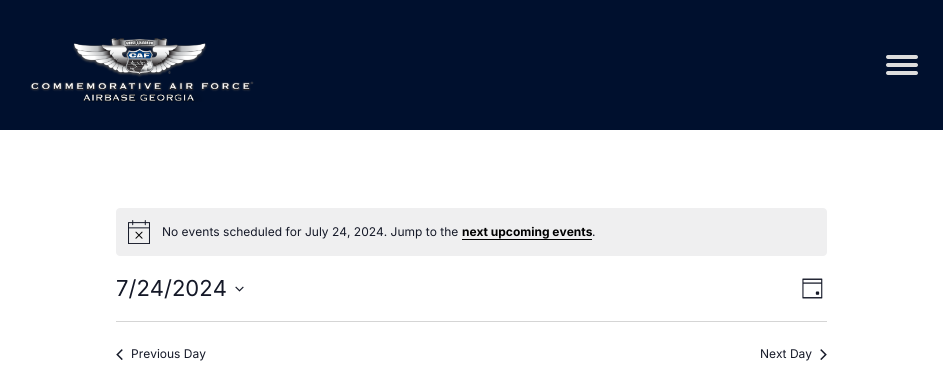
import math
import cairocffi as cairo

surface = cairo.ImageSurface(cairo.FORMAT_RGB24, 943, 370)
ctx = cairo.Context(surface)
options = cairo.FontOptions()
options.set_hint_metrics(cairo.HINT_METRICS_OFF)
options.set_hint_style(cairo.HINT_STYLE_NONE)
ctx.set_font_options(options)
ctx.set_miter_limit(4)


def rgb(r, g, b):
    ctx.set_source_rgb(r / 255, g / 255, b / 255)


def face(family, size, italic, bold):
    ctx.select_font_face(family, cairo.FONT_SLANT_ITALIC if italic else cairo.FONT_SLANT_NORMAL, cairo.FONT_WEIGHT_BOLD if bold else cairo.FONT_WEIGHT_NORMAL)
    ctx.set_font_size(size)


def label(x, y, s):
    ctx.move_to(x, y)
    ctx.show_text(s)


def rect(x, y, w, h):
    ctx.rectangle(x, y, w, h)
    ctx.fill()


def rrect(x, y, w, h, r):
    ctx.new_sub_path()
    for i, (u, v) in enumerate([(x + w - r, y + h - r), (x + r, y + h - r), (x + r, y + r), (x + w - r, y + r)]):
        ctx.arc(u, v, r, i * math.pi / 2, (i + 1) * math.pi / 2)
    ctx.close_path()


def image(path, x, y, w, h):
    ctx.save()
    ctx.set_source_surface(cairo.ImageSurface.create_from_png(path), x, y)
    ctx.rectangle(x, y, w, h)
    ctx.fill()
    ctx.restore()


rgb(255, 255, 255)
ctx.paint()
rgb(0, 16, 46)
rect(0, 0, 943, 130)
image('image0.png', 30, 38, 224, 64)
rgb(221, 221, 221)
rrect(886, 55, 32, 4, 2)
ctx.fill()
rrect(886, 63, 32, 4, 2)
ctx.fill()
rrect(886, 71, 32, 4, 2)
ctx.fill()
rgb(239, 239, 240)
rrect(116, 208, 711, 48, 4)
ctx.fill()
image('image1.png', 128, 220, 22, 24)
face('Inter', 12, 0, 0)
rgb(20, 24, 39)
label(162, 236, 'No events scheduled for July 24, 2024. Jump to the')
face('Inter', 12, 0, 1)
rgb(0, 0, 0)
label(462, 236, 'next upcoming events')
rect(462, 239, 130, 1)
face('Inter', 12, 0, 0)
rgb(20, 24, 39)
label(592, 236, '.')
face('Inter', 22, 0, 0)
label(116, 296, '7/24/2024')
image('image2.png', 235, 286, 9, 6)
image('image3.png', 802, 278, 21, 21)
rgb(213, 213, 213)
rect(116, 321, 711, 1)
image('image4.png', 116, 349, 7, 11)
face('Inter', 12, 0, 0)
rgb(20, 24, 39)
label(131, 358, 'Previous Day')
label(760, 358, 'Next Day')
image('image5.png', 820, 349, 7, 11)
surface.write_to_png('render.png')
